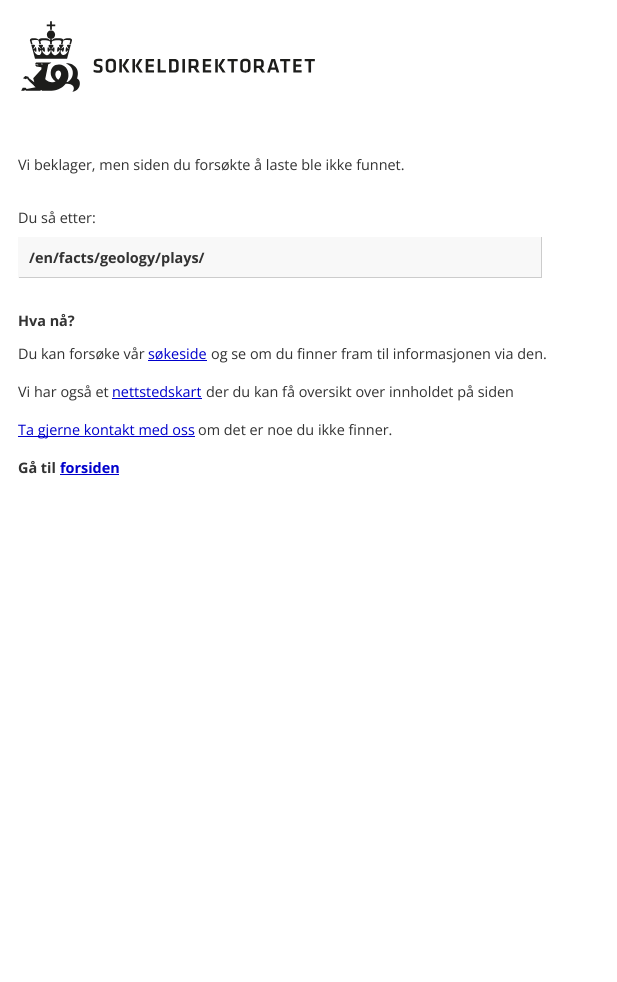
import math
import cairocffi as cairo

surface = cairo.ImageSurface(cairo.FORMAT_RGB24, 617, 982)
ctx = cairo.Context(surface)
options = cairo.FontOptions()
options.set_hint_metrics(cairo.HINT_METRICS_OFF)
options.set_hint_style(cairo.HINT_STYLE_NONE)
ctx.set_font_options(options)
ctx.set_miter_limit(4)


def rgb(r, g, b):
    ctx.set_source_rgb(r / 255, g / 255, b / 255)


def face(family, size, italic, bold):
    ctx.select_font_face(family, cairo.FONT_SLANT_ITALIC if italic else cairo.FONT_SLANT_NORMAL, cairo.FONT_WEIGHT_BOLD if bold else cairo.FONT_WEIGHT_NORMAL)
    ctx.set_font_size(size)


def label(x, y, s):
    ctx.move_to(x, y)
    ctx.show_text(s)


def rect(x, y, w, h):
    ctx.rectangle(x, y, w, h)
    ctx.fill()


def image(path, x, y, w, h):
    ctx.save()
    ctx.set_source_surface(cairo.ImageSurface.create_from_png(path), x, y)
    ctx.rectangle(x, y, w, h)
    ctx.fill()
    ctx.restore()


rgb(255, 255, 255)
ctx.paint()
image('image0.png', 21, 21, 294, 71)
face('Open Sans', 14.4, 0, 0)
rgb(51, 51, 51)
label(18, 170, 'Vi beklager, men siden du forsøkte å laste ble ikke funnet.')
label(18, 223, 'Du så etter:')
rgb(248, 248, 248)
rect(19, 237, 522, 40)
rgb(204, 204, 204)
rect(541, 237, 1, 41)
rect(18, 277, 524, 1)
rgb(248, 248, 248)
rect(18, 237, 1, 41)
face('Open Sans', 14.4, 0, 1)
rgb(51, 51, 51)
label(29, 263, '/en/facts/geology/plays/')
label(18, 326, 'Hva nå?')
face('Open Sans', 14.4, 0, 0)
label(18, 359, 'Du kan forsøke vår')
rgb(0, 0, 204)
label(148, 359, 'søkeside')
rect(148, 360, 59, 1)
rgb(51, 51, 51)
label(211, 359, 'og se om du finner fram til informasjonen via den.')
label(18, 397, 'Vi har også et')
rgb(0, 0, 204)
label(112, 397, 'nettstedskart')
rect(112, 398, 90, 1)
rgb(51, 51, 51)
label(206, 397, 'der du kan få oversikt over innholdet på siden')
rgb(0, 0, 204)
rect(18, 436, 177, 1)
label(18, 435, 'Ta gjerne kontakt med oss')
rgb(51, 51, 51)
label(198, 435, 'om det er noe du ikke finner.')
face('Open Sans', 14.4, 0, 1)
label(18, 473, 'Gå til')
rgb(0, 0, 204)
label(60, 473, 'forsiden')
rect(60, 474, 59, 1)
surface.write_to_png('render.png')
